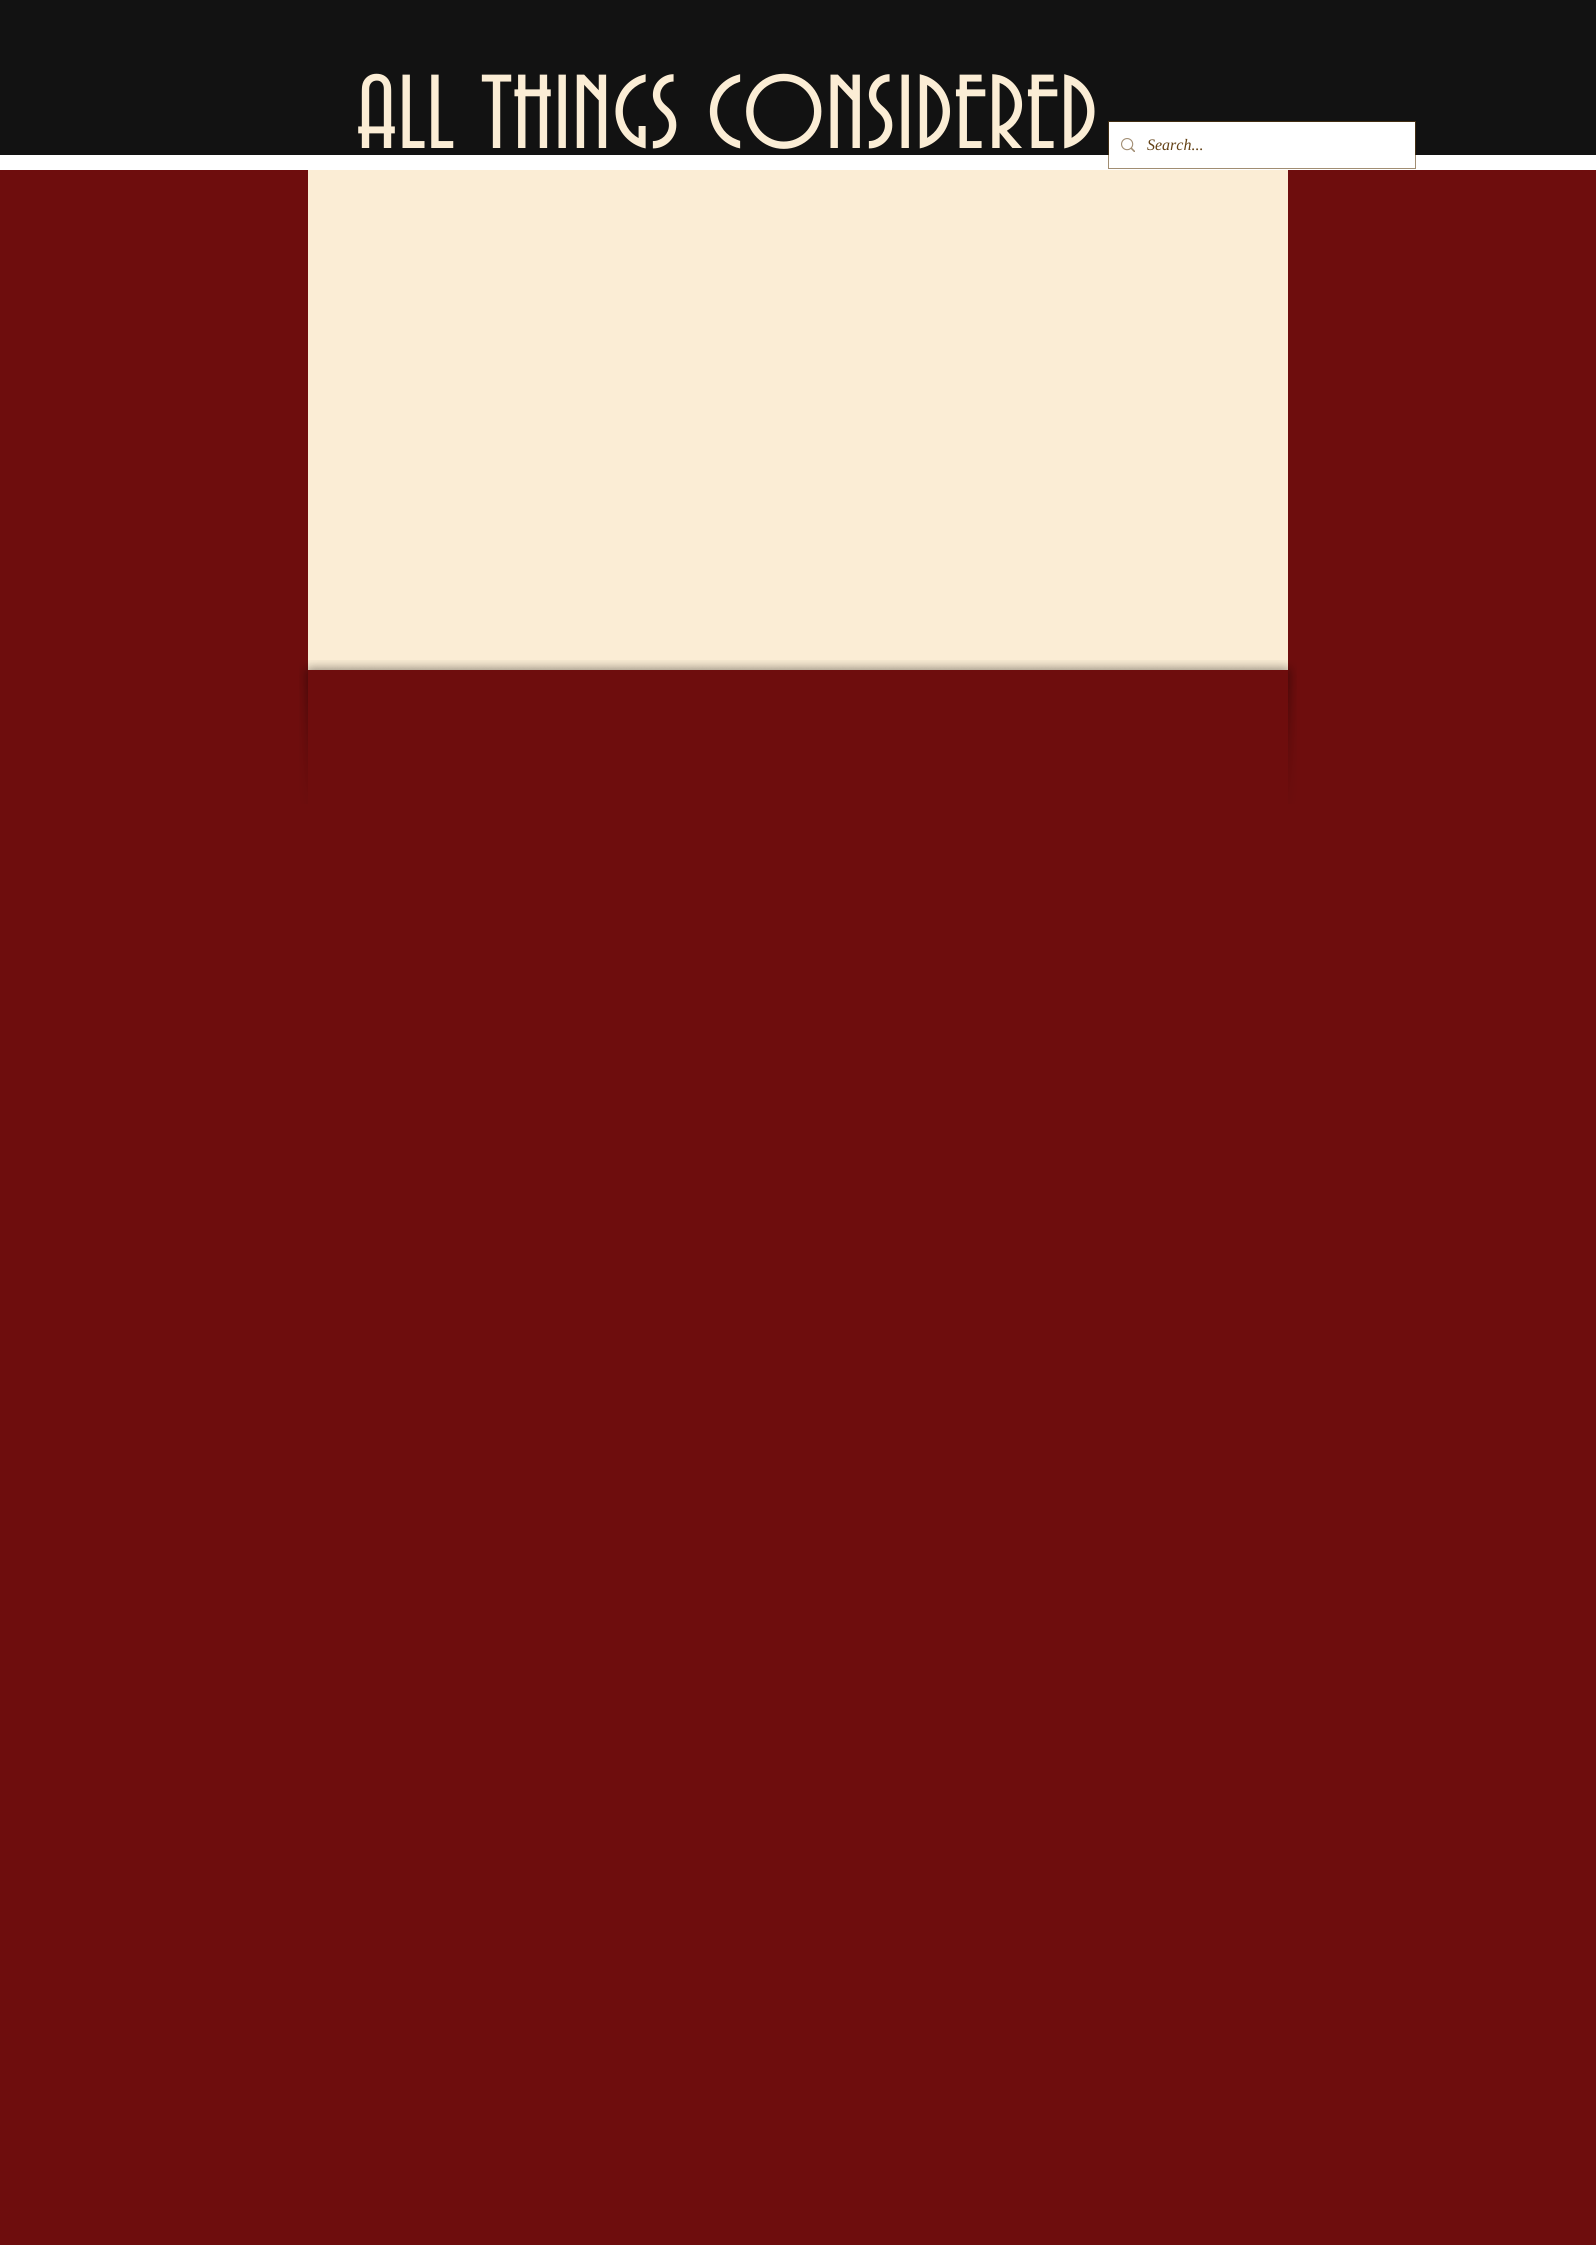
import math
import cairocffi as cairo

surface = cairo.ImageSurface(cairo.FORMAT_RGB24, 1596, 2245)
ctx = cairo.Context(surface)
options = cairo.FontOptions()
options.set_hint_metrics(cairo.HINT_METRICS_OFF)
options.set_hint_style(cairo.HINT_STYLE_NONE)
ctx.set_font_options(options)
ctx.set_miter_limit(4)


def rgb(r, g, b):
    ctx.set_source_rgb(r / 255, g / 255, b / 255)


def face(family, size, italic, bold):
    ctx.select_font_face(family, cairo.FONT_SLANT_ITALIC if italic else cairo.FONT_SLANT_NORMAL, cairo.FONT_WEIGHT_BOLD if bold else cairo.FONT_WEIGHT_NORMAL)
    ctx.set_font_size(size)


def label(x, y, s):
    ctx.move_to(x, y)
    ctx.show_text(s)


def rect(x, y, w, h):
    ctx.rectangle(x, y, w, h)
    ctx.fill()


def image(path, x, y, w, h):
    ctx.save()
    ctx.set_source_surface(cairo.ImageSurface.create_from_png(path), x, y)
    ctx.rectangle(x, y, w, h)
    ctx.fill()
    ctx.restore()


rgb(110, 13, 13)
ctx.paint()
rgb(18, 18, 18)
rect(0, 0, 1596, 155)
rgb(255, 255, 255)
rect(0, 155, 1596, 15)
face('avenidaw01', 110, 0, 0)
rgb(251, 237, 213)
label(356, 148, 'ALL THINGS CONSIDERED')
ctx.rectangle(1108.5, 121.5, 307, 47)
ctx.set_source_rgba(0.388, 0.255, 0.082, 0.6)
ctx.set_line_width(1)
ctx.stroke()
rgb(255, 255, 255)
rect(1109, 122, 306, 33)
image('image0.png', 1121, 138, 14, 14)
face('Liberation Serif', 16, 1, 0)
rgb(99, 65, 21)
label(1147, 150, 'Search...')
rgb(251, 237, 213)
rect(308, 170, 980, 500)
image('image1.png', 299, 660, 44, 144)
image('image2.png', 343, 660, 910, 10)
image('image3.png', 1253, 660, 44, 144)
rgb(110, 13, 13)
rect(308, 670, 980, 134)
surface.write_to_png('render.png')
